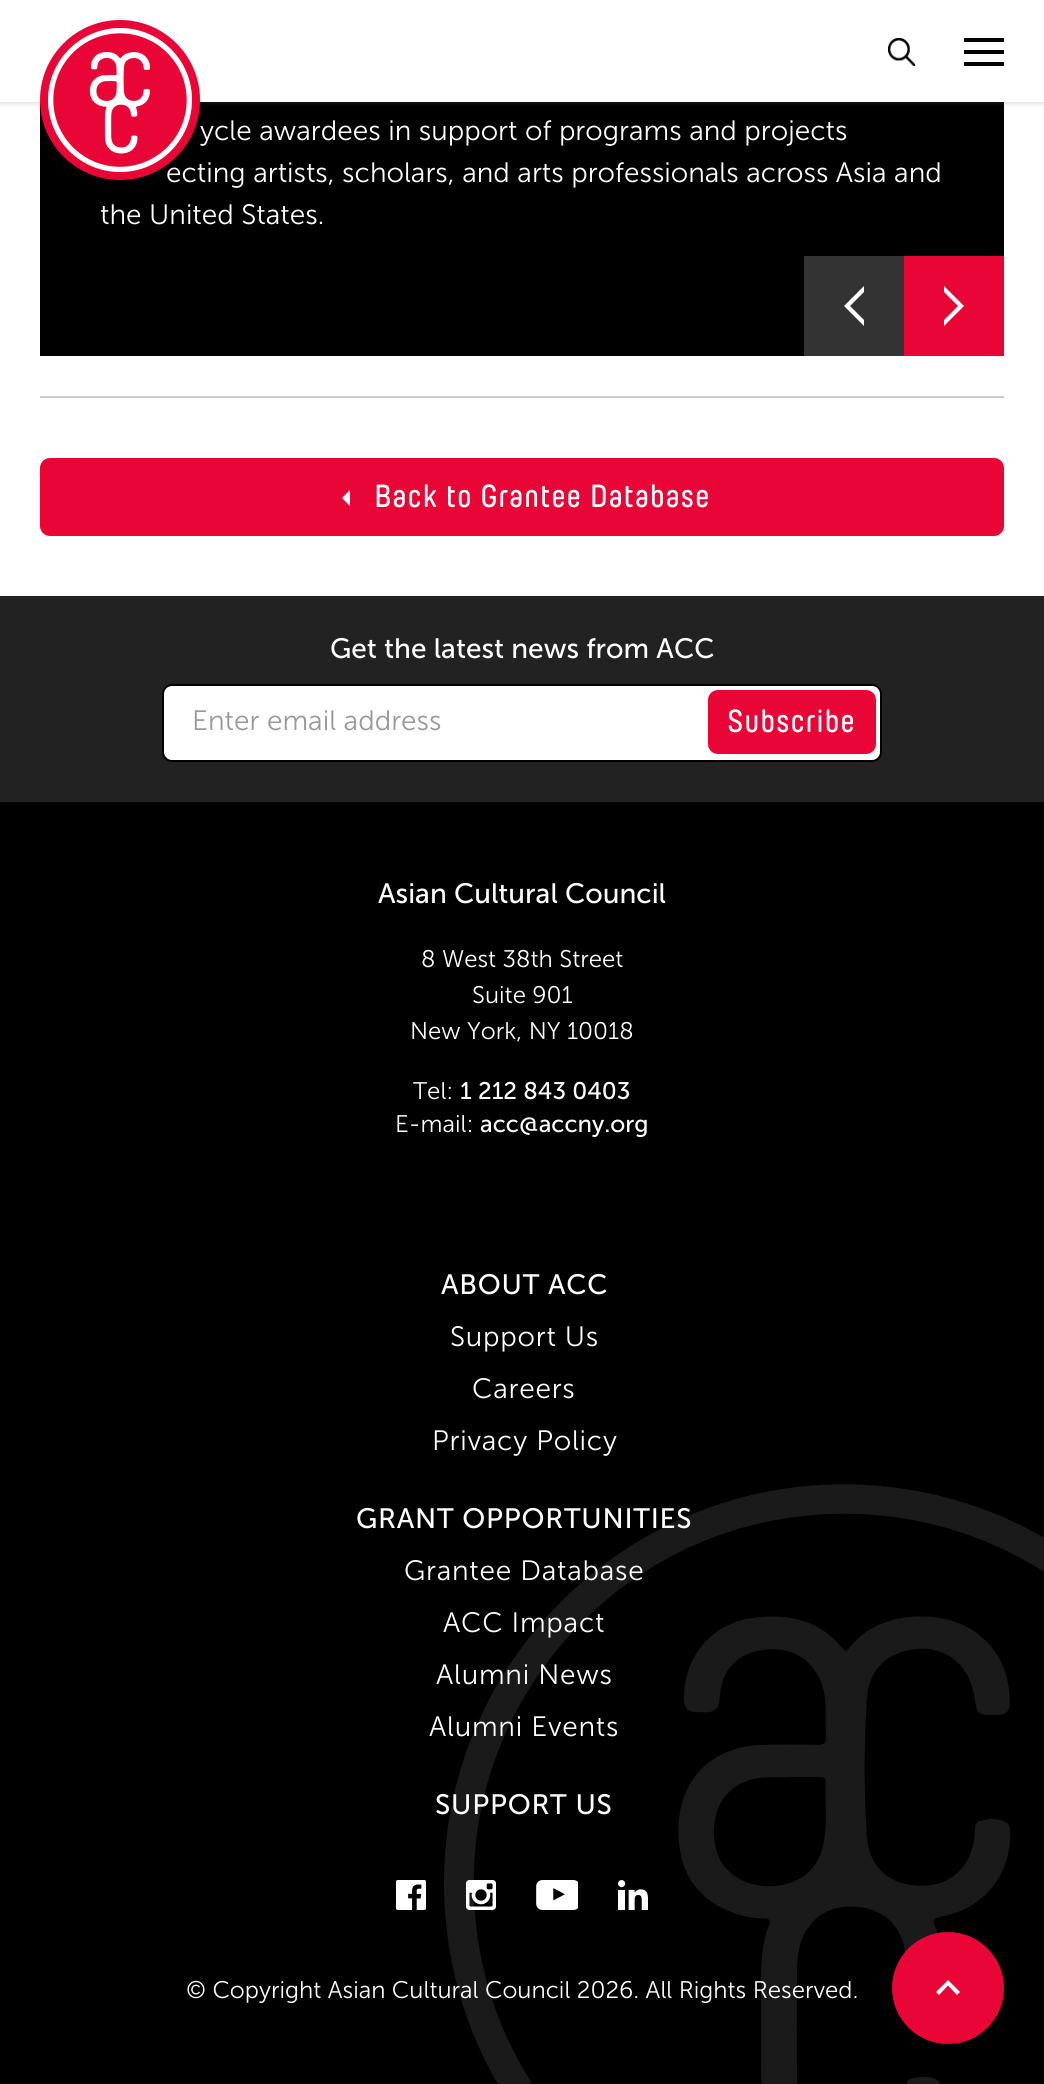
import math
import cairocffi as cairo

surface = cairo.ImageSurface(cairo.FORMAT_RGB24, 1044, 2084)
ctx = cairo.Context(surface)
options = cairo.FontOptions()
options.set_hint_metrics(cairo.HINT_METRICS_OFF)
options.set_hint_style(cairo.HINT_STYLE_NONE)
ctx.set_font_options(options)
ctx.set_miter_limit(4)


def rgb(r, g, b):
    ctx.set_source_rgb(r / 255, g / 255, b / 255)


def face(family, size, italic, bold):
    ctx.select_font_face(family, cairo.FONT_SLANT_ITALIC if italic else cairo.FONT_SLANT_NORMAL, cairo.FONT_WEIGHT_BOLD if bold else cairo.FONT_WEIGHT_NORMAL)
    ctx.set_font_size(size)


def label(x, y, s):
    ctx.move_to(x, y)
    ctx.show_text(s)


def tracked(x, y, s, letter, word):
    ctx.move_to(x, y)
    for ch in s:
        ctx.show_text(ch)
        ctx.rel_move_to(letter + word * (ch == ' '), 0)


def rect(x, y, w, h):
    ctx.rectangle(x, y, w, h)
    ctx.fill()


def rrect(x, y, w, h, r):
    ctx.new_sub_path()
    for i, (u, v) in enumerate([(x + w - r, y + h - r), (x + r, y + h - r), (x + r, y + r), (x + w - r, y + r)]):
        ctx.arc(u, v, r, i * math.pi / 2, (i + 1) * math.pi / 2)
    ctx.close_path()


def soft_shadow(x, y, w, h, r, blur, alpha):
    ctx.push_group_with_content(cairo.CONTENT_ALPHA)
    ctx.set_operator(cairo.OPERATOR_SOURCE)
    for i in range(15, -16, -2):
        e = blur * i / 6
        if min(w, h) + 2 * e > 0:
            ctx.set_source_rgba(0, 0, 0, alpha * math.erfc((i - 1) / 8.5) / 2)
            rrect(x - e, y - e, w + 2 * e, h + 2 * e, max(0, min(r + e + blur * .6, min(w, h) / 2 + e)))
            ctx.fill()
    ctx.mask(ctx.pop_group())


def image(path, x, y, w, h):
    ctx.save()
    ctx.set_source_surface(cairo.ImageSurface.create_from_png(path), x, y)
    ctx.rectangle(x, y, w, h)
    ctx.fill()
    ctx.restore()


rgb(255, 255, 255)
ctx.paint()
rgb(0, 0, 0)
rect(40, 102, 964, 254)
rgb(100, 100, 100)
soft_shadow(0, 2, 1044, 102, 0, 2, 0.2)
rgb(255, 255, 255)
rect(0, 0, 1044, 102)
image('image0.png', 888, 38, 28, 28)
rgb(0, 0, 0)
rect(964, 38, 40, 4)
rect(964, 50, 40, 4)
rect(964, 62, 40, 4)
face('Museo Sans Light', 28, 0, 0)
rgb(255, 255, 255)
label(200, 140, 'ycle awardees in support of programs and projects')
label(166, 182, 'ecting artists, scholars, and arts professionals across Asia and')
image('image1.png', 40, 20, 160, 160)
rgb(204, 204, 204)
rect(40, 396, 964, 2)
rgb(255, 255, 255)
label(100, 224, 'the United States.')
rgb(51, 51, 51)
rect(804, 256, 100, 100)
rgb(255, 255, 255)
ctx.new_path()
ctx.move_to(864, 286)
ctx.line_to(844, 306)
ctx.line_to(864, 326)
ctx.line_to(864, 320)
ctx.line_to(850, 306)
ctx.line_to(864, 292)
ctx.close_path()
ctx.fill()
rgb(233, 5, 53)
rect(904, 256, 100, 100)
rgb(255, 255, 255)
ctx.new_path()
ctx.move_to(944, 286)
ctx.line_to(964, 306)
ctx.line_to(944, 326)
ctx.line_to(944, 320)
ctx.line_to(958, 306)
ctx.line_to(944, 292)
ctx.close_path()
ctx.fill()
rgb(233, 5, 53)
rrect(40, 458, 964, 78, 10)
ctx.fill()
rgb(255, 255, 255)
ctx.new_path()
ctx.move_to(350, 490)
ctx.line_to(350, 506)
ctx.line_to(342, 498)
ctx.close_path()
ctx.fill()
face('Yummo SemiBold', 32, 0, 0)
tracked(374, 507, 'Back to Grantee Database', 0.8, 0)
rgb(0, 0, 0)
rect(0, 802, 1044, 1282)
rgb(34, 34, 34)
rect(0, 596, 1044, 206)
face('Museo Sans', 28, 0, 0)
rgb(255, 255, 255)
label(330, 658, 'Get the latest news from ACC')
rrect(163, 685, 718, 76, 9)
ctx.fill_preserve()
rgb(0, 0, 0)
ctx.stroke()
face('Museo Sans Light', 28, 0, 0)
rgb(153, 153, 153)
label(192, 730, 'Enter email address')
rgb(233, 5, 53)
rrect(708, 690, 168, 64, 10)
ctx.fill()
face('Yummo SemiBold', 32, 0, 0)
rgb(255, 255, 255)
tracked(727, 732, 'Subscribe', 0.8, 0)
image('image2.png', 444, 1484, 600, 600)
face('Museo Sans', 28, 0, 0)
label(378, 903, 'Asian Cultural Council')
face('Museo Sans Light', 24, 0, 0)
label(421, 967, '8 West 38th Street')
label(472, 1003, 'Suite 901')
label(410, 1039, 'New York, NY 10018')
label(413, 1099, 'Tel:')
face('Museo Sans', 24, 0, 0)
label(460, 1099, '1 212 843 0403')
face('Museo Sans Light', 24, 0, 0)
label(395, 1132, 'E-mail:')
face('Museo Sans', 24, 0, 0)
label(480, 1132, 'acc@accny.org')
face('Museo Sans', 28, 0, 0)
tracked(441, 1294, 'ABOUT ACC', 0.75, 0)
face('Museo Sans Light', 28, 0, 0)
tracked(450, 1346, 'Support Us', 0.75, 0)
tracked(472, 1398, 'Careers', 0.75, 0)
tracked(432, 1450, 'Privacy Policy', 0.75, 0)
face('Museo Sans', 28, 0, 0)
tracked(356, 1528, 'GRANT OPPORTUNITIES', 0.75, 0)
face('Museo Sans Light', 28, 0, 0)
tracked(404, 1580, 'Grantee Database', 0.75, 0)
tracked(443, 1632, 'ACC Impact', 0.75, 0)
tracked(436, 1684, 'Alumni News', 0.75, 0)
tracked(429, 1736, 'Alumni Events', 0.75, 0)
face('Museo Sans', 28, 0, 0)
tracked(435, 1814, 'SUPPORT US', 0.75, 0)
image('image3.png', 396, 1880, 30, 30)
image('image4.png', 466, 1880, 30, 30)
image('image5.png', 536, 1880, 42, 30)
image('image6.png', 618, 1880, 30, 30)
face('Museo Sans Light', 24, 0, 0)
label(186, 1998, '© Copyright Asian Cultural Council 2026. All Rights Reserved.')
rgb(233, 5, 53)
ctx.new_path()
ctx.arc(948, 1988, 56, 0, 2 * math.pi)
ctx.fill()
rgb(255, 255, 255)
ctx.new_path()
ctx.move_to(939, 1995)
ctx.line_to(948, 1985.5)
ctx.line_to(957, 1995)
ctx.line_to(960, 1992)
ctx.line_to(948, 1980)
ctx.line_to(936, 1992)
ctx.close_path()
ctx.fill()
surface.write_to_png('render.png')
